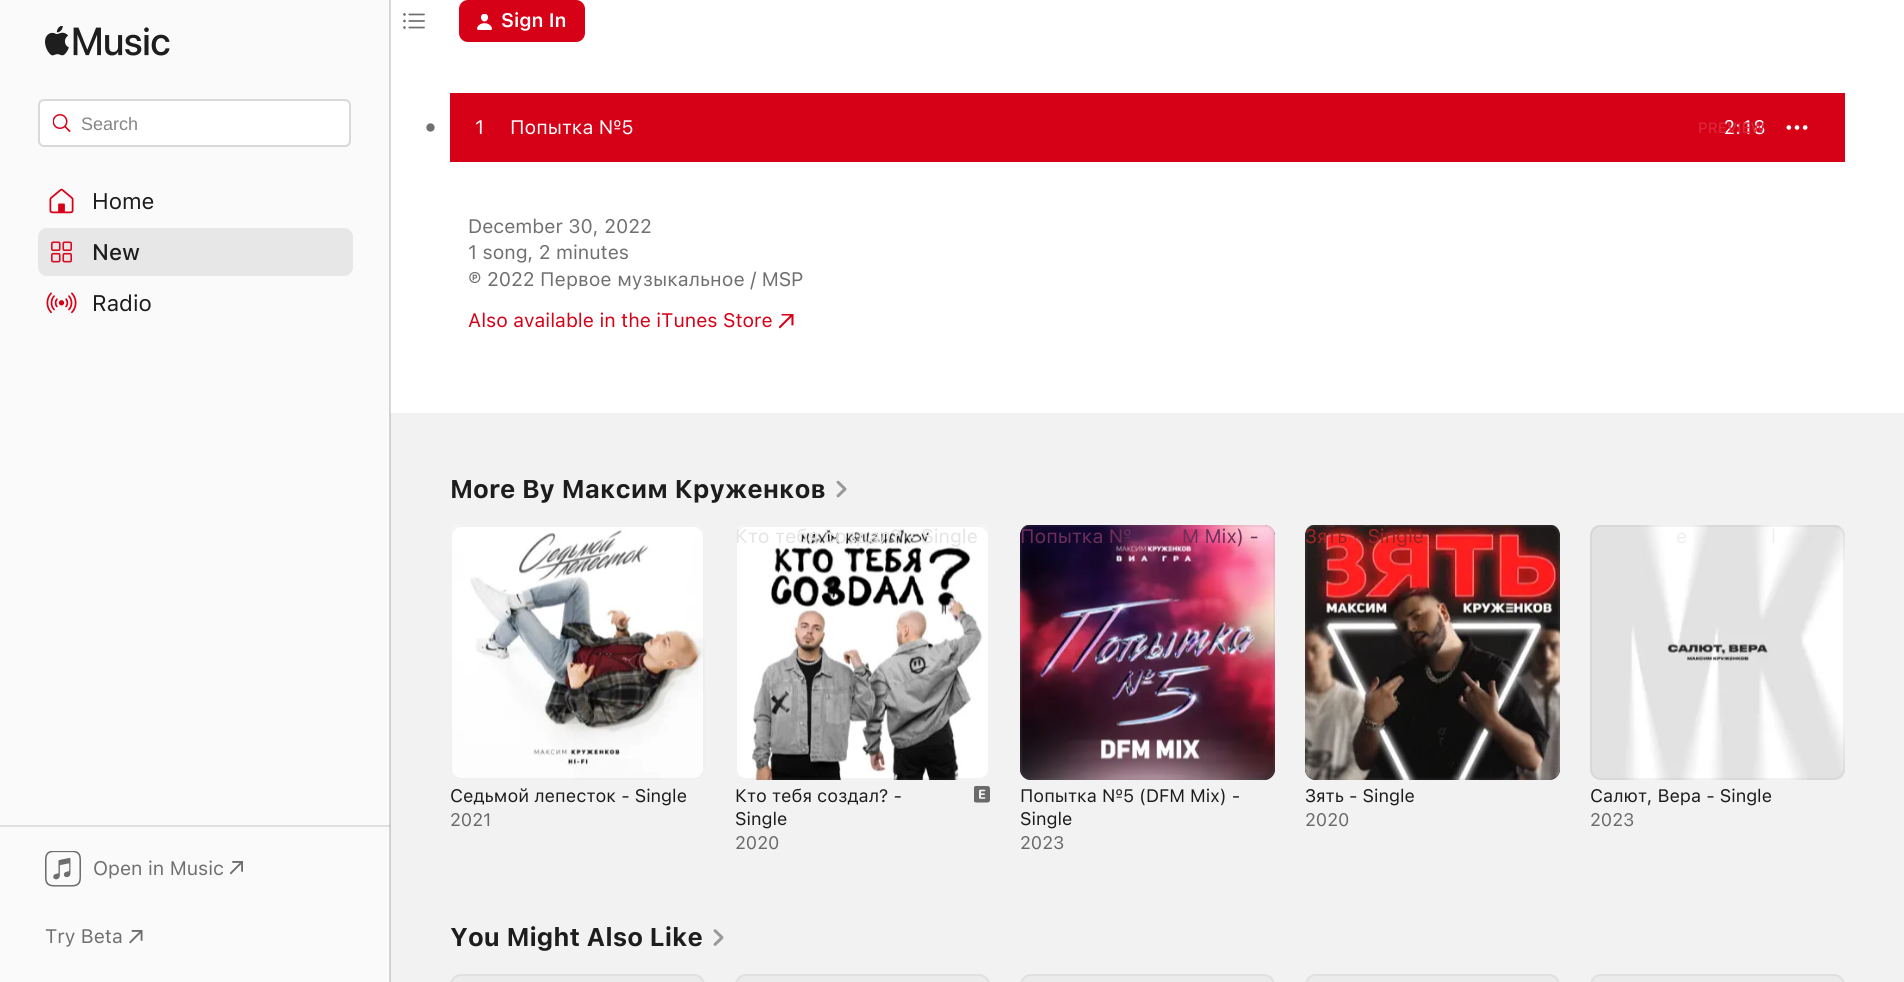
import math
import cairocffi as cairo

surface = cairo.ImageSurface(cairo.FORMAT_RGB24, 1904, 982)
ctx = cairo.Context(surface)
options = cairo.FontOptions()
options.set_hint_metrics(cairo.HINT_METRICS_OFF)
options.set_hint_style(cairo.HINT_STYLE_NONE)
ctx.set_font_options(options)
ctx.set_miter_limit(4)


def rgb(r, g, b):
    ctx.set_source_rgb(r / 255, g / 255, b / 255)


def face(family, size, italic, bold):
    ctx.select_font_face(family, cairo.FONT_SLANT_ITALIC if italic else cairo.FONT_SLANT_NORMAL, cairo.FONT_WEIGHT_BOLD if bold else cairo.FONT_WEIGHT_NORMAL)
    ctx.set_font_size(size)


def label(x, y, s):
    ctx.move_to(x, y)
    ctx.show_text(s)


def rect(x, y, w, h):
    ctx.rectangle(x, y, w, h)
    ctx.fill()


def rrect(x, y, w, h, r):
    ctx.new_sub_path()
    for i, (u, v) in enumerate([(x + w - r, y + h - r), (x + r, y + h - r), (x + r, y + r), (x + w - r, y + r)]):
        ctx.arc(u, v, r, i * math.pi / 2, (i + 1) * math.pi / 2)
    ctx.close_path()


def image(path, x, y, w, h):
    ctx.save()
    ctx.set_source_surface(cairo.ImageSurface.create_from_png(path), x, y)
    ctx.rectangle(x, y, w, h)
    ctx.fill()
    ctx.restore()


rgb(255, 255, 255)
ctx.paint()
rgb(217, 217, 217)
rect(390, 0, 1, 413)
image('image0.png', 403, 13, 22, 16)
rgb(214, 0, 23)
rrect(459, 0, 126, 42, 9)
ctx.fill()
image('image1.png', 477, 14, 15, 16)
face('SF SemiBold', 19.5, 0, 0)
rgb(255, 255, 255)
label(501, 27, 'Sign In')
rgb(250, 250, 250)
rect(0, 0, 389, 982)
rgb(225, 225, 225)
rect(0, 825, 390, 2)
rgb(213, 213, 213)
rect(389, 0, 1, 982)
rgb(192, 192, 192)
rect(389, 825, 1, 2)
image('image2.png', 45, 26, 125, 30)
rgb(255, 255, 255)
rrect(39, 100, 311, 46, 5)
ctx.fill_preserve()
rgb(217, 217, 217)
ctx.stroke()
image('image3.png', 53, 114, 18, 18)
face('Liberation Sans', 18, 0, 0)
rgb(133, 133, 133)
label(81, 130, 'Search')
image('image4.png', 49, 188, 25, 26)
face('SF', 22.5, 0, 0)
rgb(29, 29, 29)
label(92, 209, 'Home')
rgb(231, 231, 232)
rrect(38, 228, 315, 48, 9)
ctx.fill()
image('image5.png', 51, 241, 21, 22)
face('SF Medium', 22.5, 0, 0)
rgb(29, 29, 29)
label(92, 260, 'New')
image('image6.png', 46, 292, 31, 22)
face('SF', 22.5, 0, 0)
label(92, 311, 'Radio')
image('image7.png', 45, 851, 36, 36)
face('SF', 19.5, 0, 0)
rgb(112, 112, 112)
label(93, 875, 'Open in Music')
image('image8.png', 230, 861, 13, 14)
label(45, 943, 'Try Beta')
image('image9.png', 129, 930, 14, 14)
rgb(214, 0, 23)
rect(450, 93, 1395, 69)
image('image10.png', 426, 123, 9, 9)
rgb(255, 255, 255)
label(475, 134, '1')
label(510, 134, 'Попытка №5')
face('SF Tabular', 19.5, 0, 0)
label(1723, 134, '2:18')
face('SF Medium', 15, 0, 0)
rgb(220, 37, 56)
label(1698, 133, 'PREVIEW')
image('image11.png', 1786, 125, 22, 5)
face('SF', 19.5, 0, 0)
rgb(112, 112, 112)
label(468, 233, 'December 30, 2022')
label(468, 259, '1 song, 2 minutes')
label(468, 286, '℗ 2022 Первое музыкальное / MSP')
rgb(214, 0, 23)
label(468, 327, 'Also available in the iTunes Store')
image('image12.png', 779, 314, 15, 15)
rgb(242, 242, 242)
rect(391, 413, 1513, 569)
rgb(206, 206, 206)
rect(390, 413, 1, 569)
face('SF', 25.5, 0, 1)
rgb(29, 29, 29)
label(450, 498, 'More By Максим Круженков')
image('image13.png', 836, 480, 11, 18)
rgb(255, 255, 255)
rrect(450, 525, 255, 255, 11)
ctx.fill()
image('image14.png', 451, 525, 254, 255)
rrect(451, 526, 253, 253, 10)
ctx.set_source_rgba(0.502, 0.502, 0.502, 0.1)
ctx.stroke()
face('SF', 18, 0, 0)
rgb(29, 29, 29)
label(450, 802, 'Седьмой лепесток - Single')
rgb(106, 106, 106)
label(450, 826, '2021')
rgb(255, 255, 255)
rrect(735, 525, 255, 255, 11)
ctx.fill()
image('image15.png', 736, 525, 253, 255)
rrect(736, 526, 253, 253, 10)
ctx.set_source_rgba(0.502, 0.502, 0.502, 0.1)
ctx.stroke()
face('SF', 19.5, 0, 0)
rgb(228, 228, 228)
label(735, 543, 'Кто тебя создал? - Single')
face('SF', 18, 0, 0)
rgb(29, 29, 29)
label(735, 802, 'Кто тебя создал? -')
label(735, 825, 'Single')
image('image16.png', 974, 786, 16, 17)
rgb(106, 106, 106)
label(735, 849, '2020')
rgb(18, 8, 42)
rrect(1020, 525, 255, 255, 11)
ctx.fill()
image('image17.png', 1020, 525, 255, 255)
rrect(1021, 526, 253, 253, 10)
ctx.set_source_rgba(0.502, 0.502, 0.502, 0.1)
ctx.stroke()
face('SF', 19.5, 0, 0)
rgb(109, 47, 89)
label(1020, 543, 'Попытка №')
label(1182, 543, 'M Mix) -')
face('SF', 18, 0, 0)
rgb(29, 29, 29)
label(1020, 802, 'Попытка №5 (DFM Mix) -')
label(1020, 825, 'Single')
rgb(106, 106, 106)
label(1020, 849, '2023')
rgb(36, 28, 26)
rrect(1305, 525, 255, 255, 11)
ctx.fill()
image('image18.png', 1305, 525, 255, 255)
rrect(1306, 526, 253, 253, 10)
ctx.set_source_rgba(0.502, 0.502, 0.502, 0.1)
ctx.stroke()
face('SF', 19.5, 0, 0)
rgb(158, 36, 35)
label(1305, 543, 'Зять - Single')
face('SF', 18, 0, 0)
rgb(29, 29, 29)
label(1305, 802, 'Зять - Single')
rgb(106, 106, 106)
label(1305, 826, '2020')
rgb(226, 226, 226)
rrect(1590, 525, 255, 255, 11)
ctx.fill()
image('image19.png', 1590, 525, 255, 255)
rrect(1591, 526, 253, 253, 10)
ctx.set_source_rgba(0.502, 0.502, 0.502, 0.1)
ctx.stroke()
face('SF', 19.5, 0, 0)
rgb(238, 238, 238)
label(1676, 543, 'е')
label(1771, 543, 'l')
face('SF', 18, 0, 0)
rgb(29, 29, 29)
label(1590, 802, 'Салют, Вера - Single')
rgb(106, 106, 106)
label(1590, 826, '2023')
face('SF', 25.5, 0, 1)
rgb(29, 29, 29)
label(450, 946, 'You Might Also Like')
image('image20.png', 713, 929, 11, 17)
image('image21.png', 450, 974, 255, 8)
rrect(451, 975, 253, 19, 10)
ctx.set_source_rgba(0.502, 0.502, 0.502, 0.1)
ctx.stroke()
ctx.save()
rrect(735, 974, 255, 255, 11)
ctx.clip()
rgb(235, 235, 235)
rect(735, 974, 255, 8)
ctx.restore()
rrect(736, 975, 253, 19, 10)
rgb(224, 224, 224)
ctx.stroke()
image('image22.png', 1020, 974, 255, 8)
rrect(1021, 975, 253, 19, 10)
ctx.set_source_rgba(0.502, 0.502, 0.502, 0.1)
ctx.stroke()
ctx.save()
rrect(1305, 974, 255, 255, 11)
ctx.clip()
rgb(235, 235, 235)
rect(1305, 974, 255, 8)
ctx.restore()
image('image23.png', 1306, 974, 253, 6)
rrect(1306, 975, 253, 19, 10)
ctx.stroke()
ctx.save()
rrect(1590, 974, 255, 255, 11)
ctx.clip()
rgb(235, 235, 235)
rect(1590, 974, 255, 8)
ctx.restore()
rrect(1591, 975, 253, 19, 10)
ctx.stroke()
surface.write_to_png('render.png')
